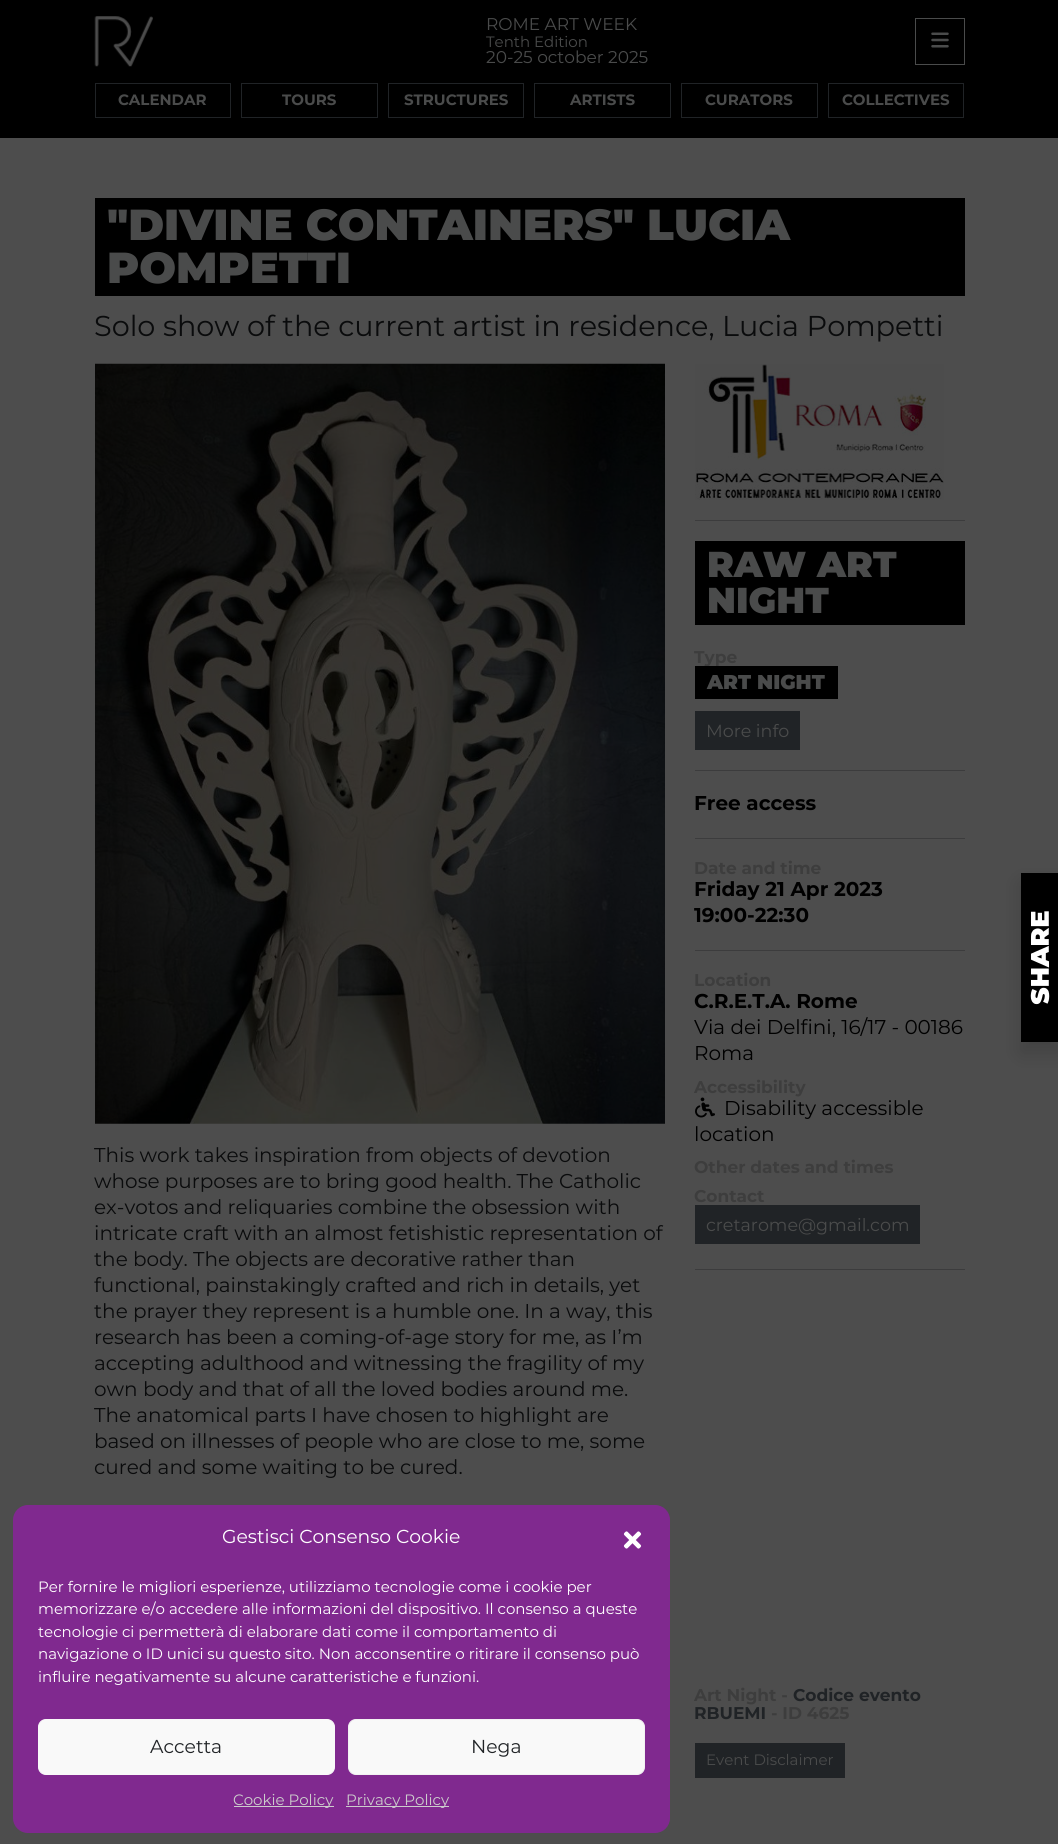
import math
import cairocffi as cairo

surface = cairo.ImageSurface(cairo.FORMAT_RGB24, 1058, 1844)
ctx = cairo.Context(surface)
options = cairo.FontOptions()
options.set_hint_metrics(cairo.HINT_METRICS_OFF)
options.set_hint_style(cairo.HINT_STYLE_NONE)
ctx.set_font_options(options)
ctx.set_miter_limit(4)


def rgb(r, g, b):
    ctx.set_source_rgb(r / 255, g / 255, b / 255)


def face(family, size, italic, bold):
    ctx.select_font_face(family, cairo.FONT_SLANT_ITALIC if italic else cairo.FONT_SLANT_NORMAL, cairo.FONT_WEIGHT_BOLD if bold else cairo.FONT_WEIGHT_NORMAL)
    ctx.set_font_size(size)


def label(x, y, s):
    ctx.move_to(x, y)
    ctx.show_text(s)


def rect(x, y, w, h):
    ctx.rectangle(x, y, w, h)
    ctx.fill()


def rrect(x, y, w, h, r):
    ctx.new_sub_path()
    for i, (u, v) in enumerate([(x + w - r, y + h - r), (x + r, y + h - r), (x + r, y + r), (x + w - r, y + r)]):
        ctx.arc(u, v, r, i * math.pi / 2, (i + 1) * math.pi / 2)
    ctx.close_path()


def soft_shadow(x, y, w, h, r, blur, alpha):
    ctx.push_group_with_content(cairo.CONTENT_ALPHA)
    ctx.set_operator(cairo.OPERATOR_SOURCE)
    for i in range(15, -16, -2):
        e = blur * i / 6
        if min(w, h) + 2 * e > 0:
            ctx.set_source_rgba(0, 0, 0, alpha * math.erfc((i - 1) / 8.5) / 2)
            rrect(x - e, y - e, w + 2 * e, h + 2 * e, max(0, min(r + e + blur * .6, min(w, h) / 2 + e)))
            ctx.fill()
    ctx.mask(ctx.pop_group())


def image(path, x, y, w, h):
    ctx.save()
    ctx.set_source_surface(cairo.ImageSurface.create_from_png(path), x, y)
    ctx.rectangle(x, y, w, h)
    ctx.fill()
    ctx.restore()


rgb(77, 77, 77)
ctx.paint()
rgb(0, 0, 0)
rect(0, 0, 1058, 138)
image('image0.png', 94, 16, 59, 51)
face('Montserrat', 17, 0, 0)
rgb(74, 75, 75)
label(486, 30, 'ROME ART WEEK')
face('Montserrat', 15, 0, 0)
label(486, 47, 'Tenth Edition')
face('Montserrat', 17, 0, 0)
label(486, 63, '20-25 october 2025')
ctx.rectangle(915.5, 18.5, 49, 46)
ctx.set_line_width(1)
ctx.stroke()
image('image1.png', 931, 32, 18, 16)
ctx.rectangle(95.5, 83.5, 135, 34)
rgb(32, 35, 38)
ctx.stroke()
face('Montserrat', 15, 0, 1)
rgb(74, 75, 75)
label(118, 105, 'CALENDAR')
ctx.rectangle(241.5, 83.5, 136, 34)
rgb(32, 35, 38)
ctx.stroke()
rgb(74, 75, 75)
label(282, 105, 'TOURS')
ctx.rectangle(388.5, 83.5, 135, 34)
rgb(32, 35, 38)
ctx.stroke()
rgb(74, 75, 75)
label(404, 105, 'STRUCTURES')
ctx.rectangle(534.5, 83.5, 136, 34)
rgb(32, 35, 38)
ctx.stroke()
rgb(74, 75, 75)
label(570, 105, 'ARTISTS')
ctx.rectangle(681.5, 83.5, 136, 34)
rgb(32, 35, 38)
ctx.stroke()
rgb(74, 75, 75)
label(705, 105, 'CURATORS')
ctx.rectangle(828.5, 83.5, 135, 34)
rgb(32, 35, 38)
ctx.stroke()
rgb(74, 75, 75)
label(842, 105, 'COLLECTIVES')
rgb(0, 0, 0)
rect(95, 198, 870, 98)
face('Montserrat Black', 43.4, 0, 0)
rgb(74, 75, 75)
label(107, 240, '"DIVINE CONTAINERS" LUCIA')
label(107, 283, 'POMPETTI')
face('Montserrat', 28.7, 0, 0)
rgb(10, 11, 12)
label(94, 336, 'Solo show of the current artist in residence, Lucia Pompetti')
image('image2.png', 95, 363, 570, 761)
face('Montserrat', 20, 0, 0)
label(94, 1162, 'This work takes inspiration from objects of devotion')
label(94, 1188, 'whose purposes are to bring good health. The Catholic')
label(94, 1214, 'ex-votos and reliquaries combine the obsession with')
label(94, 1240, 'intricate craft with an almost fetishistic representation of')
label(94, 1266, 'the body. The objects are decorative rather than')
label(94, 1292, 'functional, painstakingly crafted and rich in details, yet')
label(94, 1318, 'the prayer they represent is a humble one. In a way, this')
label(94, 1344, 'research has been a coming-of-age story for me, as I’m')
label(94, 1370, 'accepting adulthood and witnessing the fragility of my')
label(94, 1396, 'own body and that of all the loved bodies around me.')
label(94, 1422, 'The anatomical parts I have chosen to highlight are')
label(94, 1448, 'based on illnesses of people who are close to me, some')
label(94, 1474, 'cured and some waiting to be cured.')
image('image3.png', 695, 364, 249, 136)
rgb(60, 60, 61)
rect(695, 520, 270, 1)
rgb(0, 0, 0)
rect(695, 541, 270, 84)
face('Montserrat Black', 36, 0, 0)
rgb(74, 75, 75)
label(707, 577, 'RAW ART')
label(707, 613, 'NIGHT')
face('Montserrat', 17, 0, 1)
rgb(61, 61, 61)
label(694, 663, 'Type')
rgb(0, 0, 0)
rect(695, 666, 143, 33)
face('Montserrat Black', 20, 0, 0)
rgb(74, 75, 75)
label(707, 689, 'ART NIGHT')
rgb(32, 35, 38)
rect(695, 711, 105, 39)
face('Montserrat', 17.5, 0, 0)
rgb(74, 75, 75)
label(706, 737, 'More info')
rgb(60, 60, 61)
rect(695, 770, 270, 1)
face('Montserrat', 20, 0, 1)
rgb(0, 0, 0)
label(694, 810, 'Free access')
rgb(60, 60, 61)
rect(695, 838, 270, 1)
face('Montserrat', 17, 0, 1)
rgb(61, 61, 61)
label(694, 874, 'Date and time')
face('Montserrat', 20, 0, 1)
rgb(0, 0, 0)
label(694, 896, 'Friday 21 Apr 2023')
label(694, 922, '19:00-22:30')
rgb(60, 60, 61)
rect(695, 950, 270, 1)
face('Montserrat', 17, 0, 1)
rgb(61, 61, 61)
label(694, 986, 'Location')
face('Montserrat', 20, 0, 1)
rgb(0, 0, 0)
label(694, 1008, 'C.R.E.T.A. Rome')
face('Montserrat', 20, 0, 0)
label(694, 1034, 'Via dei Delfini, 16/17 - 00186')
label(694, 1060, 'Roma')
face('Montserrat', 17, 0, 1)
rgb(61, 61, 61)
label(694, 1093, 'Accessibility')
image('image4.png', 695, 1097, 20, 21)
face('Montserrat', 20, 0, 0)
rgb(0, 0, 0)
label(724, 1115, 'Disability accessible')
label(694, 1141, 'location')
face('Montserrat', 17, 0, 1)
rgb(61, 61, 61)
label(694, 1173, 'Other dates and times')
label(694, 1202, 'Contact')
rgb(32, 35, 38)
rect(695, 1205, 225, 39)
face('Montserrat', 17.5, 0, 0)
rgb(74, 75, 75)
label(706, 1231, 'cretarome@gmail.com')
rgb(60, 60, 61)
rect(695, 1269, 270, 1)
face('Montserrat', 17, 0, 1)
rgb(61, 61, 61)
label(694, 1701, 'Art Night -')
rgb(32, 35, 38)
label(793, 1701, 'Codice evento')
label(694, 1719, 'RBUEMI')
rgb(61, 61, 61)
label(771, 1719, '- ID 4625')
rgb(32, 35, 38)
rect(695, 1743, 150, 35)
face('Montserrat', 15, 0, 0)
rgb(74, 75, 75)
label(706, 1765, 'Event Disclaimer')
rgb(0, 0, 0)
soft_shadow(1021, 883, 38, 170, 0, 10, 0.15)
image('image5.png', 1021, 873, 37, 169)
rgb(128, 41, 143)
rrect(13, 1505, 657, 328, 15)
ctx.fill()
face('Montserrat', 18.75, 0, 0)
rgb(255, 255, 255)
label(222, 1543, 'Gestisci Consenso Cookie')
image('image6.png', 623, 1531, 19, 18)
face('Montserrat', 15, 0, 0)
label(38, 1592, 'Per fornire le migliori esperienze, utilizziamo tecnologie come i cookie per')
label(38, 1614, 'memorizzare e/o accedere alle informazioni del dispositivo. Il consenso a queste')
label(38, 1637, 'tecnologie ci permetterà di elaborare dati come il comportamento di')
label(38, 1659, 'navigazione o ID unici su questo sito. Non acconsentire o ritirare il consenso può')
label(38, 1682, 'influire negativamente su alcune caratteristiche e funzioni.')
rgb(249, 249, 249)
rrect(38.5, 1719.5, 296, 55, 7.5)
ctx.fill_preserve()
ctx.stroke()
face('Montserrat', 18.75, 0, 0)
rgb(32, 35, 38)
label(150, 1753, 'Accetta')
rgb(249, 249, 249)
rrect(348.5, 1719.5, 296, 55, 7.5)
ctx.fill_preserve()
rgb(242, 242, 242)
ctx.stroke()
rgb(32, 35, 38)
label(471, 1753, 'Nega')
rgb(204, 204, 204)
rect(234, 1806, 100, 1)
face('Montserrat', 15, 0, 0)
label(233, 1805, 'Cookie Policy')
rect(346, 1806, 103, 1)
label(346, 1805, 'Privacy Policy')
surface.write_to_png('render.png')
